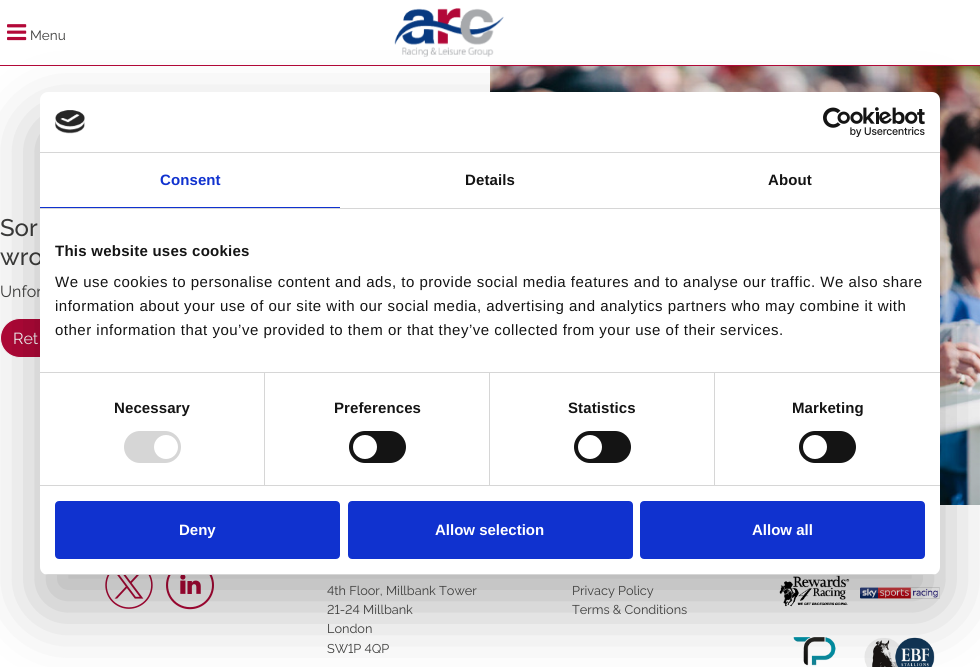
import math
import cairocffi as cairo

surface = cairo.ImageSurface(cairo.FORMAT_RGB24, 980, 667)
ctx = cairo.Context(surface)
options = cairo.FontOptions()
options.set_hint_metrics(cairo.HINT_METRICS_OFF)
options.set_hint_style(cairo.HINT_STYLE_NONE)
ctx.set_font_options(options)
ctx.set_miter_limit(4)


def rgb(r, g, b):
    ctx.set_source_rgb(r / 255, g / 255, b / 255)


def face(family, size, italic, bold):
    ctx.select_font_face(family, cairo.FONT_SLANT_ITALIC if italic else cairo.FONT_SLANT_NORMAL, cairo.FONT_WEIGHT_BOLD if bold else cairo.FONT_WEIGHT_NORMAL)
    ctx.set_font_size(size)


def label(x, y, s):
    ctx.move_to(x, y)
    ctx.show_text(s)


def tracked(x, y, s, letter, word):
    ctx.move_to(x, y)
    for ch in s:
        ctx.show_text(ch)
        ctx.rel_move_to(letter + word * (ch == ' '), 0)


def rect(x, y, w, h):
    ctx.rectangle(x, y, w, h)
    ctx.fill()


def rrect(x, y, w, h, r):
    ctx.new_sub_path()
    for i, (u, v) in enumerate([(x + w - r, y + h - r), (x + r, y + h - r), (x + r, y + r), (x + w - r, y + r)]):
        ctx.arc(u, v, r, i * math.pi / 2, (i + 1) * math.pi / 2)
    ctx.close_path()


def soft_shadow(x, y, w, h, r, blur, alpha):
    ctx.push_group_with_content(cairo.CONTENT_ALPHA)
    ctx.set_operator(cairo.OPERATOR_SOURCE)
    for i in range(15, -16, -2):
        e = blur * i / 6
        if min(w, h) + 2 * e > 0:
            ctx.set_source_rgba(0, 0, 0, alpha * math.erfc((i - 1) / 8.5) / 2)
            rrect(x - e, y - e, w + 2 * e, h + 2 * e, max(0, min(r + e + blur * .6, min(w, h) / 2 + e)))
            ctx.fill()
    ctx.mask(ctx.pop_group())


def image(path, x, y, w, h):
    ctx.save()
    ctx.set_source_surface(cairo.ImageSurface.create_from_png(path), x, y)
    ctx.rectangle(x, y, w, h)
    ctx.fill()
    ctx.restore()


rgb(255, 255, 255)
ctx.paint()
rgb(179, 8, 56)
rect(0, 65, 980, 1)
image('image0.png', 7, 24, 20, 17)
face('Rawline', 13.5, 0, 0)
rgb(61, 61, 60)
label(30, 40, 'Menu')
image('image1.png', 394, 8, 110, 49)
face('Rawline Medium', 24, 0, 0)
label(0, 236, 'Sor')
label(0, 265, 'wro')
face('Rawline', 16, 0, 0)
label(0, 297, 'Unfor')
rgb(179, 8, 56)
rrect(0.5, 318.5, 205, 39, 19.5)
ctx.fill_preserve()
rgb(255, 255, 255)
ctx.set_line_width(1)
ctx.stroke()
label(13, 344, 'Ret')
image('image2.png', 490, 66, 490, 439)
image('image5.png', 105, 575, 48, 34)
image('image6.png', 166, 575, 48, 35)
image('image7.png', 779, 575, 71, 32)
image('image8.png', 860, 587, 80, 12)
image('image9.png', 793, 637, 43, 29)
image('image10.png', 864, 637, 71, 30)
rgb(0, 0, 0)
soft_shadow(40, 124, 900, 483, 8, 34, 0.3)
rgb(255, 255, 255)
rrect(40, 92, 900, 483, 8)
ctx.fill()
rgb(214, 214, 214)
rect(40, 152, 900, 1)
image('image3.png', 55, 110, 30, 24)
image('image4.png', 823, 107, 102, 30)
rect(40, 208, 900, 1)
rgb(16, 50, 207)
rect(40, 207, 300, 1)
face('Liberation Sans', 15, 0, 1)
tracked(160, 185, 'Consent', 0.1, 0)
rgb(20, 20, 20)
tracked(465, 185, 'Details', 0.1, 0)
tracked(768, 185, 'About', 0.1, 0)
rgb(214, 214, 214)
rect(40, 372, 900, 1)
rgb(20, 20, 20)
tracked(55, 256, 'This website uses cookies', 0.25, 0)
face('Liberation Sans', 15, 0, 0)
tracked(55, 287, 'We use cookies to personalise content and ads, to provide social media features and to analyse our traffic. We also share', 0.5, 0)
tracked(55, 311, 'information about your use of our site with our social media, advertising and analytics partners who may combine it with', 0.5, 0)
tracked(55, 335, 'other information that you’ve provided to them or that they’ve collected from your use of their services.', 0.5, 0)
rgb(214, 214, 214)
rect(40, 485, 900, 1)
rect(264, 373, 1, 112)
face('Liberation Sans', 15, 0, 1)
rgb(20, 20, 20)
tracked(114, 413, 'Necessary', 0.1, 0)
rgb(214, 214, 214)
rrect(124, 431, 57, 32, 16)
ctx.fill()
rgb(255, 255, 255)
ctx.arc(166, 447, 12, 0, 2 * math.pi)
ctx.fill()
rgb(214, 214, 214)
rect(489, 373, 1, 112)
rgb(20, 20, 20)
tracked(334, 413, 'Preferences', 0.1, 0)
rrect(349, 431, 57, 32, 16)
ctx.fill()
rgb(255, 255, 255)
ctx.arc(365, 447, 12, 0, 2 * math.pi)
ctx.fill()
rgb(214, 214, 214)
rect(714, 373, 1, 112)
rgb(20, 20, 20)
tracked(568, 413, 'Statistics', 0.1, 0)
rrect(574, 431, 57, 32, 16)
ctx.fill()
rgb(255, 255, 255)
ctx.arc(590, 447, 12, 0, 2 * math.pi)
ctx.fill()
rgb(20, 20, 20)
tracked(792, 413, 'Marketing', 0.1, 0)
rrect(799, 431, 57, 32, 16)
ctx.fill()
rgb(255, 255, 255)
ctx.arc(815, 447, 12, 0, 2 * math.pi)
ctx.fill()
ctx.save()
rrect(40, 92, 900, 483, 8)
ctx.clip()
rgb(214, 214, 214)
rect(40, 574, 900, 1)
ctx.restore()
rgb(16, 50, 207)
rrect(56, 502, 283, 56, 3)
ctx.fill_preserve()
ctx.set_line_width(2)
ctx.stroke()
rgb(255, 255, 255)
label(179, 535, 'Deny')
rgb(16, 50, 207)
rrect(349, 502, 283, 56, 3)
ctx.fill_preserve()
ctx.stroke()
rgb(255, 255, 255)
label(435, 535, 'Allow selection')
rgb(16, 50, 207)
rrect(641, 502, 283, 56, 3)
ctx.fill_preserve()
ctx.stroke()
rgb(255, 255, 255)
label(752, 535, 'Allow all')
face('Rawline', 12.75, 0, 0)
rgb(61, 61, 60)
label(327, 595, '4th Floor, Millbank Tower')
label(327, 614, '21-24 Millbank')
label(327, 633, 'London')
label(327, 653, 'SW1P 4QP')
label(572, 595, 'Privacy Policy')
label(572, 614, 'Terms & Conditions')
surface.write_to_png('render.png')
